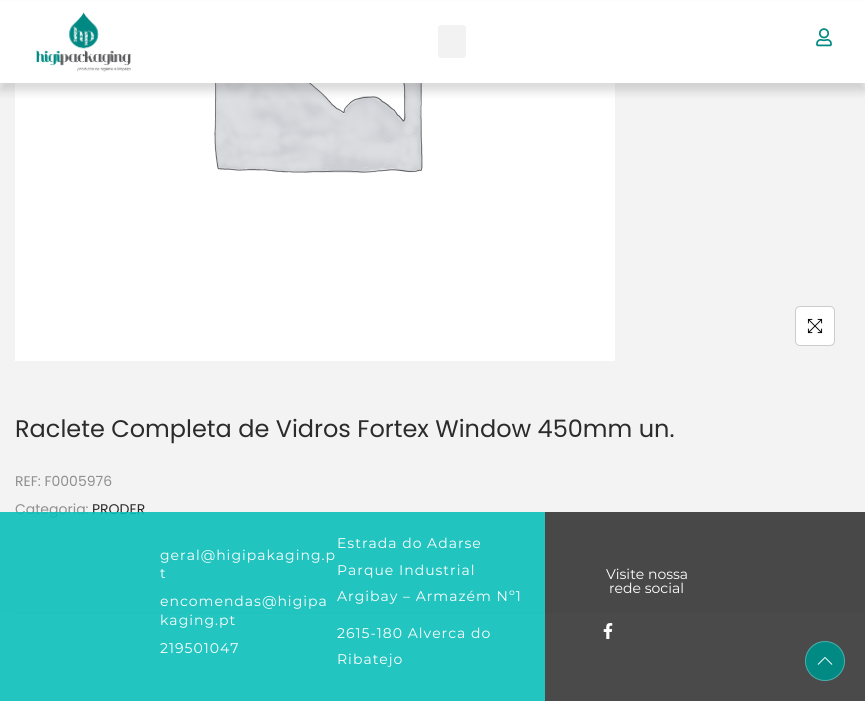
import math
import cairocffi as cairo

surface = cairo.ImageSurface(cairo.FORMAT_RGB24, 865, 701)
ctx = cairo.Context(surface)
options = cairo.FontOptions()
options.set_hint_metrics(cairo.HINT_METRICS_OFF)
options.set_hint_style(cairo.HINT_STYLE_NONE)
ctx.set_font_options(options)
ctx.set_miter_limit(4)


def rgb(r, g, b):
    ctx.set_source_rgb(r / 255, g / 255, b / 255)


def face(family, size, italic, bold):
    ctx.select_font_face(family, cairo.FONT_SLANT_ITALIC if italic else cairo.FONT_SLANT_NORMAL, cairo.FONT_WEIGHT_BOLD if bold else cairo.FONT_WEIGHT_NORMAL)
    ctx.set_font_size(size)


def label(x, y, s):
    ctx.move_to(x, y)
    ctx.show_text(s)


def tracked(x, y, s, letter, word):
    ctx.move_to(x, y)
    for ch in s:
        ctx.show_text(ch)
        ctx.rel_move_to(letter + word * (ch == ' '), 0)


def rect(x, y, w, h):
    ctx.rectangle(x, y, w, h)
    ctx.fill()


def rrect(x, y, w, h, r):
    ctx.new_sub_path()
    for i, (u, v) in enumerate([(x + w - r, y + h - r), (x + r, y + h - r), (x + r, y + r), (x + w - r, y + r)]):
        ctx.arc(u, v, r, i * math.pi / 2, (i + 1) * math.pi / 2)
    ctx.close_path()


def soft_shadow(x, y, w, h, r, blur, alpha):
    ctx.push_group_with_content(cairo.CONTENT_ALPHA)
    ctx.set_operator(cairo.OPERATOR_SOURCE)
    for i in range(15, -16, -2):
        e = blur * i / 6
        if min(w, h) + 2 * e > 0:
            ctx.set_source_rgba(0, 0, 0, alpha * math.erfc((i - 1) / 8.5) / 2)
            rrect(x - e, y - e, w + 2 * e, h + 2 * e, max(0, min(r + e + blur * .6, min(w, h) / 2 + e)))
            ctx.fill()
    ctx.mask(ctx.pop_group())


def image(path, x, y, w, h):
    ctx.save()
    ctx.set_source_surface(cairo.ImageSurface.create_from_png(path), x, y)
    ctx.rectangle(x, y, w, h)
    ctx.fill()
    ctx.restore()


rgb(255, 255, 255)
ctx.paint()
rgb(74, 74, 74)
rect(545, 613, 320, 88)
rgb(243, 243, 243)
rect(0, 83, 865, 530)
image('image2.png', 15, 83, 600, 278)
rgb(0, 0, 0)
soft_shadow(0, 8, 865, 83, 0, 5, 0.15)
rgb(255, 255, 255)
rect(0, 1, 865, 82)
image('image0.png', 36, 12, 95, 60)
rgb(242, 242, 242)
rrect(438, 25, 28, 33, 3)
ctx.fill()
image('image1.png', 816, 28, 16, 19)
rgb(72, 72, 72)
rect(545, 512, 320, 101)
rgb(255, 255, 255)
rrect(795.5, 306.5, 39, 39, 4.5)
ctx.fill_preserve()
rgb(204, 204, 204)
ctx.set_line_width(1)
ctx.stroke()
image('image3.png', 807, 318, 16, 16)
face('Poppins', 24, 0, 0)
rgb(43, 43, 43)
label(15, 437, 'Raclete Completa de Vidros Fortex Window 450mm un.')
face('Poppins', 14, 0, 0)
rgb(143, 143, 143)
label(15, 486, 'REF: F0005976')
label(15, 514, 'Categoria:')
rgb(43, 43, 43)
label(92, 514, 'PRODER')
rgb(239, 239, 239)
rect(15, 613, 530, 1)
ctx.set_source_rgba(0.027, 0.745, 0.722, 0.89)
rect(0, 512, 545, 189)
face('Montserrat', 14, 0, 0)
rgb(255, 255, 255)
tracked(160, 560, 'geral@higipakaging.p', 1, 0)
tracked(160, 578, 't', 1, 0)
tracked(160, 606, 'encomendas@higipa', 1, 0)
tracked(160, 625, 'kaging.pt', 1, 0)
tracked(160, 653, '219501047', 1, 0)
tracked(337, 548, 'Estrada do Adarse', 1, 0)
tracked(337, 575, 'Parque Industrial', 1, 0)
tracked(337, 601, 'Argibay – Armazém Nº1', 1, 0)
tracked(337, 638, '2615-180 Alverca do', 1, 0)
tracked(337, 664, 'Ribatejo', 1, 0)
label(606, 579, 'Visite nossa')
label(609, 593, 'rede social')
image('image4.png', 603, 623, 10, 16)
rgb(0, 138, 131)
ctx.arc(825, 661, 20, 0, 2 * math.pi)
ctx.fill()
ctx.arc(825, 661, 19.5, 0, 2 * math.pi)
ctx.set_source_rgba(1, 1, 1, 0.3)
ctx.stroke()
image('image5.png', 817, 657, 16, 8)
surface.write_to_png('render.png')
